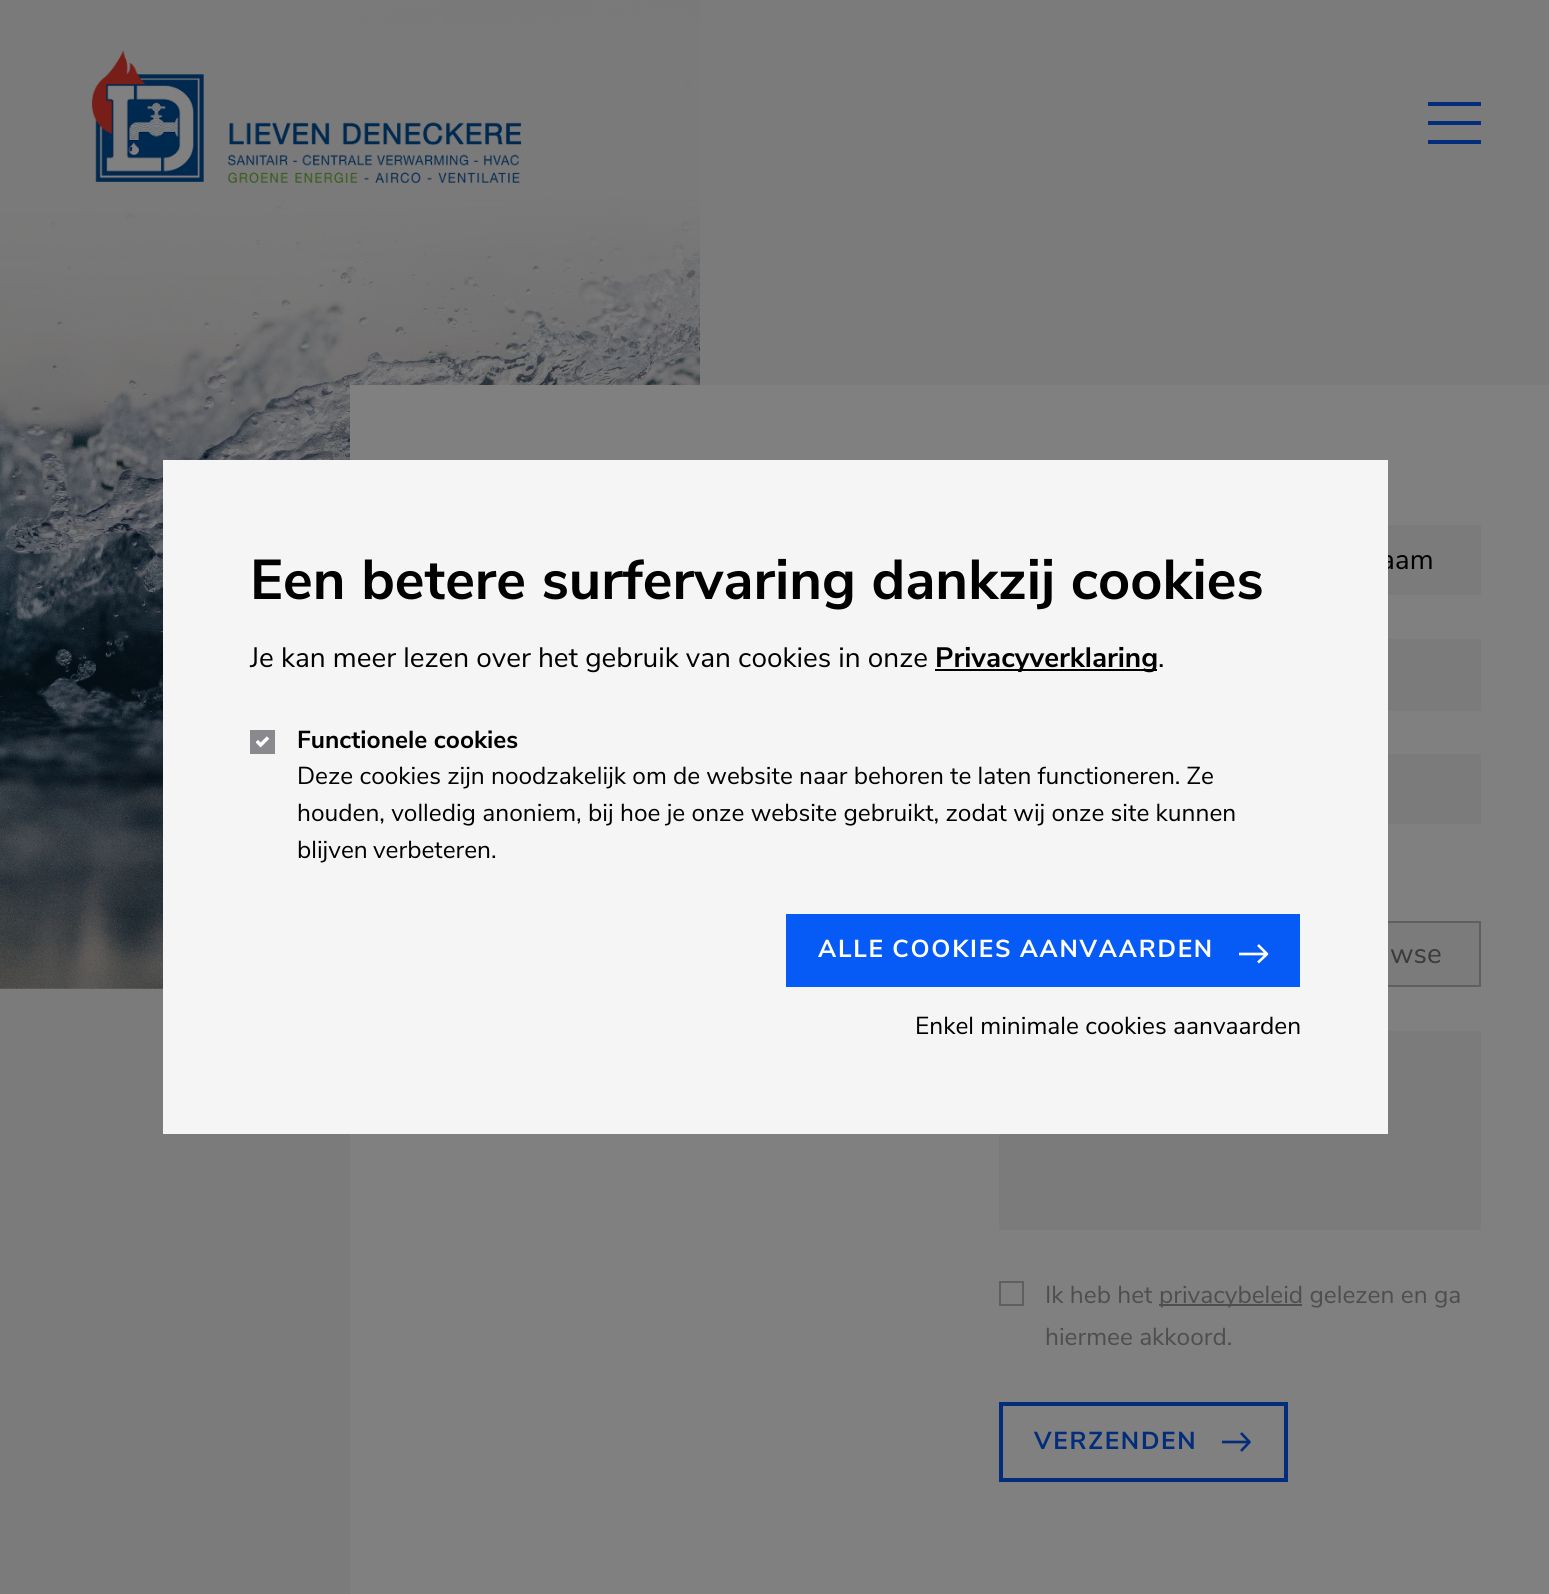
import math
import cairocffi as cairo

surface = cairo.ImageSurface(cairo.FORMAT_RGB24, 1549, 1594)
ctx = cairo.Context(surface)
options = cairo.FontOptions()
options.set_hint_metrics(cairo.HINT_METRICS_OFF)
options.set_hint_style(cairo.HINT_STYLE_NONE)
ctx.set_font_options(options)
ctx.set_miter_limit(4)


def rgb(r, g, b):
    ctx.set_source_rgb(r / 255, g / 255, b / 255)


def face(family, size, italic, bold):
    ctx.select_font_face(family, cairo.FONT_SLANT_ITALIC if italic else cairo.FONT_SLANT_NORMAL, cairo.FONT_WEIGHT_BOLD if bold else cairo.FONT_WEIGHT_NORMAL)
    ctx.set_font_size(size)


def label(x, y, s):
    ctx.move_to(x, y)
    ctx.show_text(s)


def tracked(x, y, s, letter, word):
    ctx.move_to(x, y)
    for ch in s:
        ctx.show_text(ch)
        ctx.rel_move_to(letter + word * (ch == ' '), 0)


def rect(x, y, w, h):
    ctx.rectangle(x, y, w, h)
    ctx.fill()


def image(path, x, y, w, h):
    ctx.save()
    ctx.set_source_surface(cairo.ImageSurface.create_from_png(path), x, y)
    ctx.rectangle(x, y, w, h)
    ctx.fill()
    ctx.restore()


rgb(123, 123, 123)
ctx.paint()
image('image1.png', 0, 0, 700, 989)
image('image0.png', 91, 50, 431, 133)
rgb(3, 45, 123)
rect(1428, 102, 53, 4)
rect(1428, 121, 53, 4)
rect(1428, 140, 53, 4)
rgb(128, 128, 128)
rect(350, 385, 1199, 1209)
rgb(123, 123, 123)
rect(1388, 525, 93, 70)
face('Nunito Sans', 28, 0, 0)
rgb(0, 0, 0)
label(1380, 569, 'aam')
rgb(123, 123, 123)
rect(1388, 639, 93, 72)
rect(1388, 754, 93, 70)
rect(1388, 923, 91, 62)
ctx.rectangle(1307, 922, 173, 64)
rgb(95, 95, 95)
ctx.stroke()
rgb(59, 59, 59)
label(1390, 963, 'wse')
rgb(123, 123, 123)
rect(999, 1031, 482, 199)
ctx.rectangle(1000, 1282, 23, 23)
rgb(95, 95, 95)
ctx.stroke()
face('Nunito Sans', 24.5, 0, 0)
rgb(78, 78, 81)
label(1045, 1303, 'Ik heb het')
rect(1159, 1304, 143, 2)
label(1159, 1303, 'privacybeleid gelezen en ga')
label(1045, 1345, 'hiermee akkoord.')
ctx.rectangle(1001, 1404, 285, 76)
rgb(3, 45, 123)
ctx.set_line_width(4)
ctx.stroke()
face('Nunito Sans', 24.5, 0, 1)
tracked(1034, 1449, 'VERZENDEN', 1.75, 0)
ctx.new_path()
ctx.move_to(1241, 1433)
ctx.line_to(1249.5, 1442)
ctx.line_to(1241, 1451)
ctx.set_line_width(2.6)
ctx.set_line_join(cairo.LINE_JOIN_ROUND)
ctx.stroke()
ctx.save()
ctx.rectangle(1222, 1432, 29, 21)
ctx.clip()
ctx.new_path()
ctx.move_to(1221.5, 1442)
ctx.line_to(1248, 1442)
ctx.stroke()
ctx.restore()
rgb(246, 245, 245)
rect(163, 460, 1225, 674)
face('Nunito Sans', 56, 0, 1)
rgb(0, 0, 0)
tracked(250, 599, 'Een betere surfervaring dankzij cookies', 0, 0.5)
face('Nunito Sans', 28, 0, 0)
tracked(250, 667, 'Je kan meer lezen over het gebruik van cookies in onze', 0, -0.1)
rect(935, 669, 222, 2)
face('Nunito Sans', 28, 0, 1)
label(935, 667, 'Privacyverklaring')
face('Nunito Sans', 28, 0, 0)
label(1158, 667, '.')
rgb(138, 137, 142)
rect(250, 730, 25, 24)
image('image2.png', 256, 736, 14, 12)
face('Nunito Sans', 24.5, 0, 1)
rgb(0, 0, 0)
label(297, 748, 'Functionele cookies')
face('Nunito Sans', 24.5, 0, 0)
tracked(297, 784, 'Deze cookies zijn noodzakelijk om de website naar behoren te laten functioneren. Ze', 0, -0.1)
label(297, 821, 'houden, volledig anoniem, bij hoe je onze website gebruikt, zodat wij onze site kunnen')
tracked(297, 858, 'blijven verbeteren.', 0, -1)
rgb(6, 90, 245)
rect(786, 914, 514, 73)
face('Nunito Sans', 24.5, 0, 1)
rgb(255, 255, 255)
tracked(818, 957, 'ALLE COOKIES AANVAARDEN', 1.75, -1)
ctx.new_path()
ctx.move_to(1258, 945)
ctx.line_to(1267, 954)
ctx.line_to(1258, 962.5)
ctx.move_to(1239, 954)
ctx.line_to(1265, 954)
ctx.stroke()
face('Nunito Sans', 24.5, 0, 0)
rgb(0, 0, 0)
label(915, 1034, 'Enkel minimale cookies aanvaarden')
surface.write_to_png('render.png')
